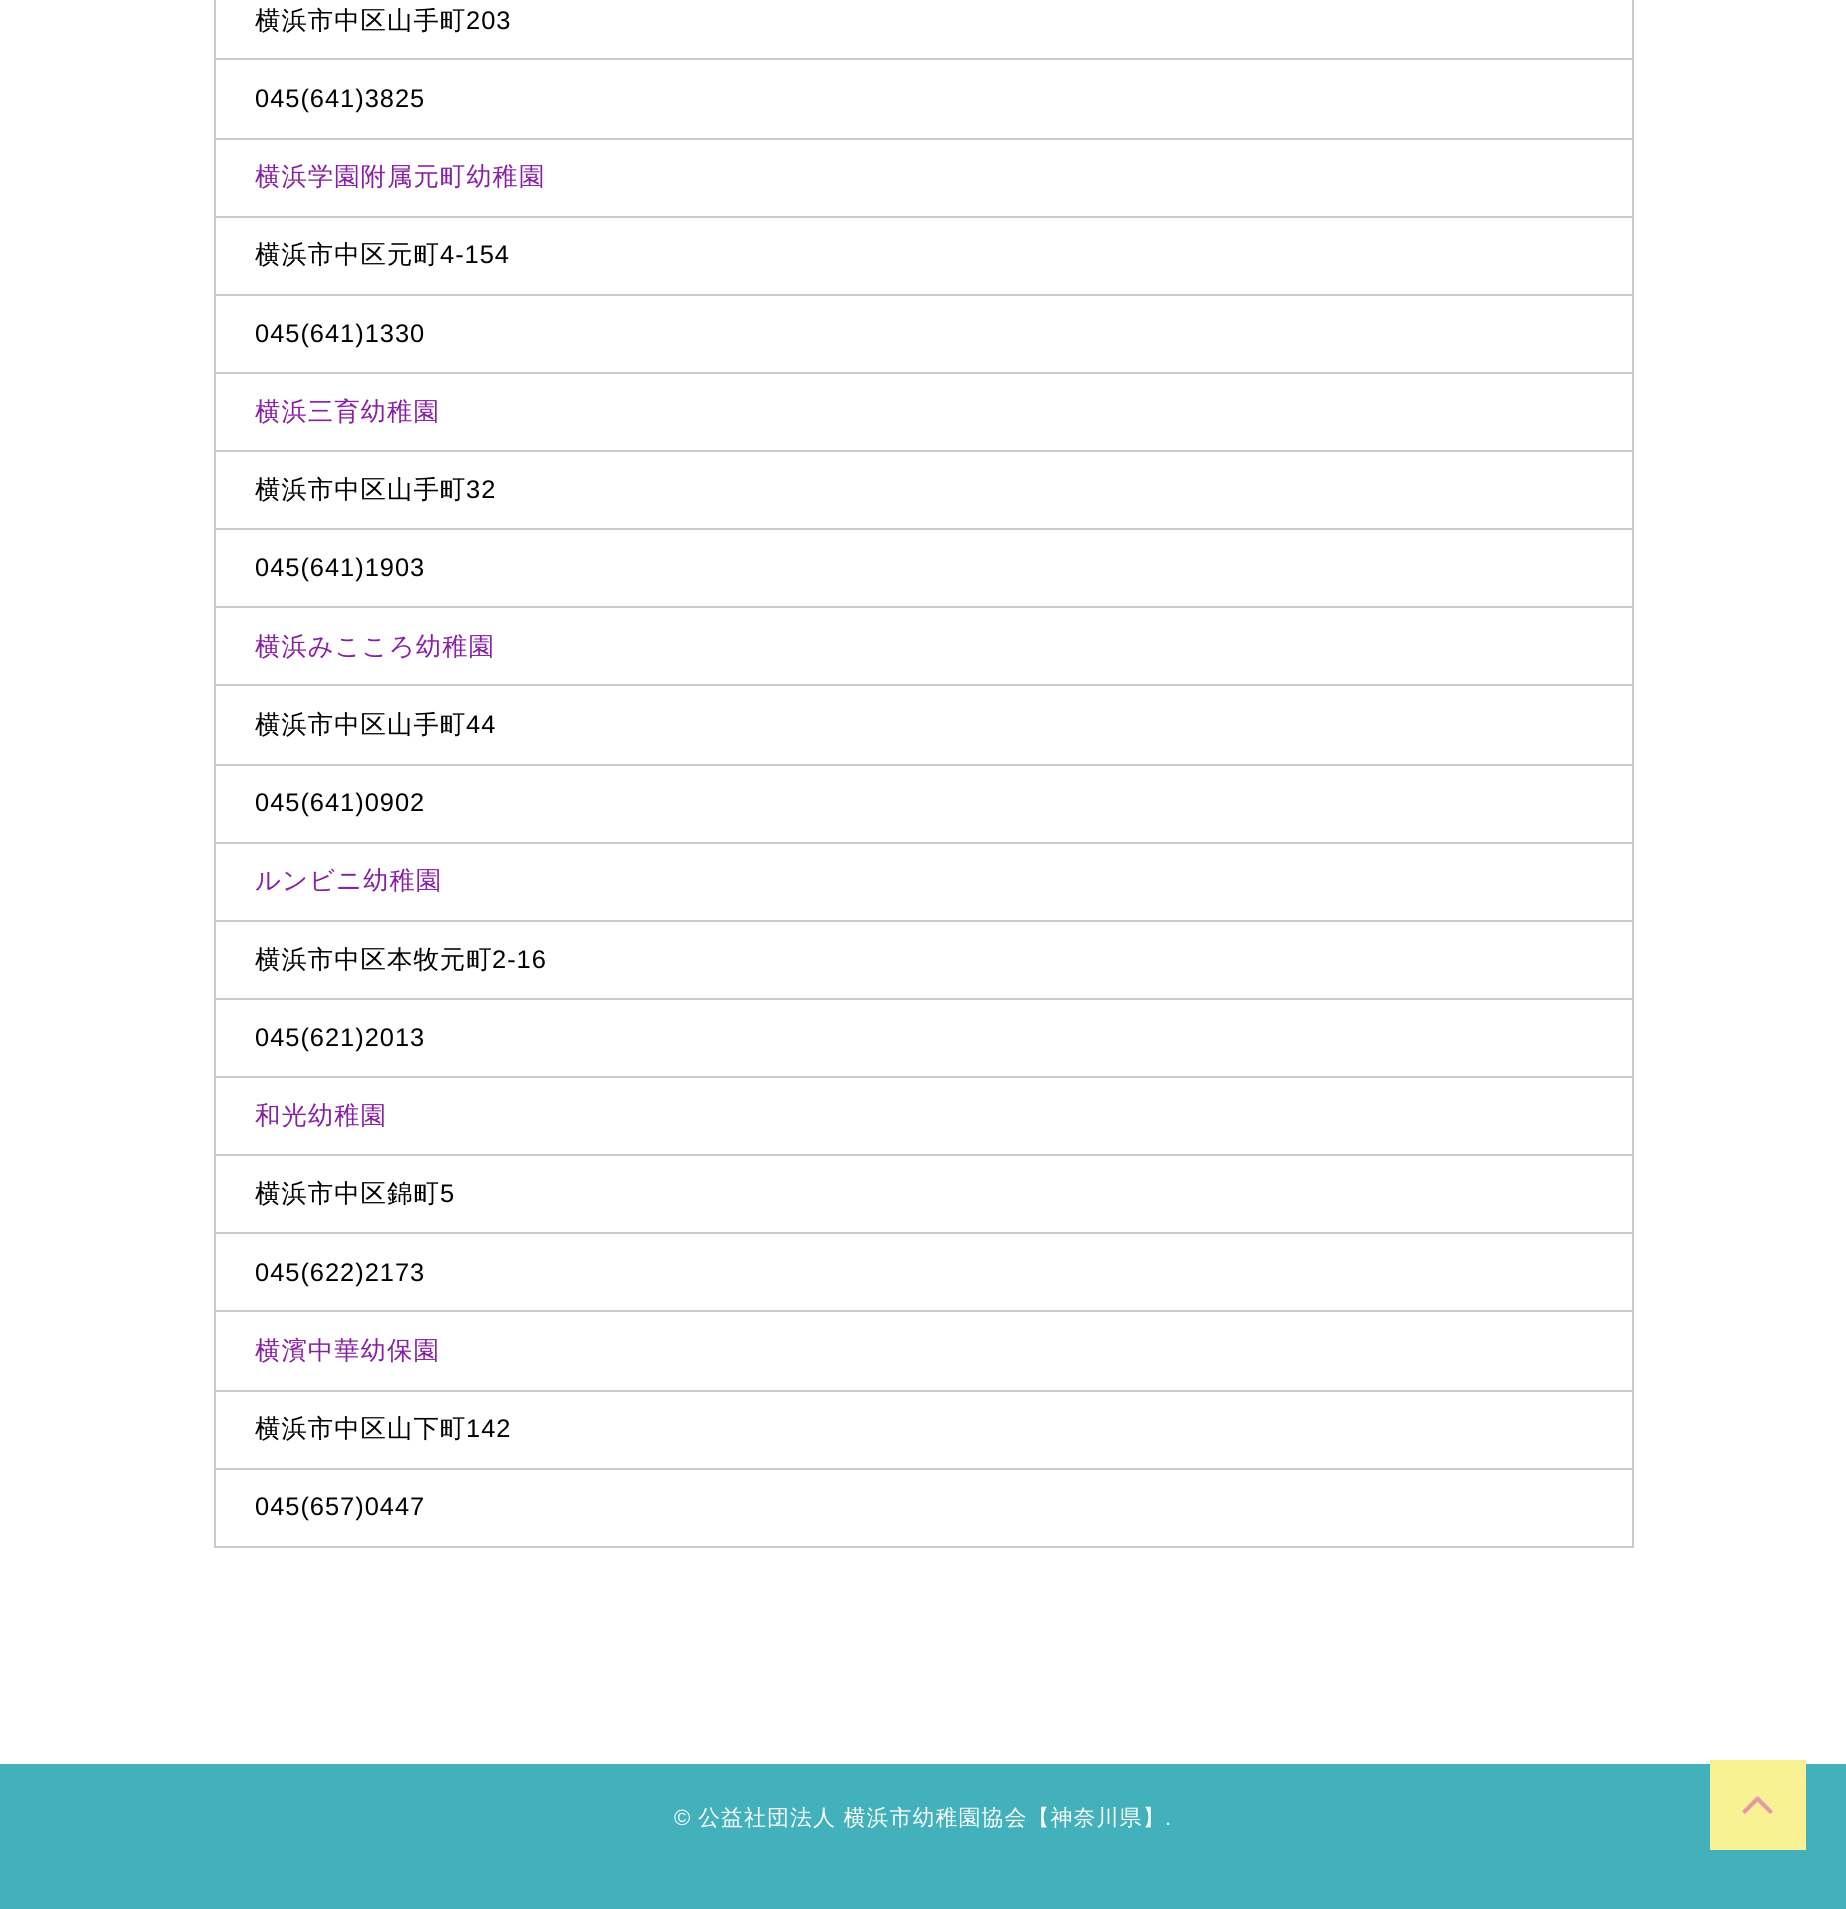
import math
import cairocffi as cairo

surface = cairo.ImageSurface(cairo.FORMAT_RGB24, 1846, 1909)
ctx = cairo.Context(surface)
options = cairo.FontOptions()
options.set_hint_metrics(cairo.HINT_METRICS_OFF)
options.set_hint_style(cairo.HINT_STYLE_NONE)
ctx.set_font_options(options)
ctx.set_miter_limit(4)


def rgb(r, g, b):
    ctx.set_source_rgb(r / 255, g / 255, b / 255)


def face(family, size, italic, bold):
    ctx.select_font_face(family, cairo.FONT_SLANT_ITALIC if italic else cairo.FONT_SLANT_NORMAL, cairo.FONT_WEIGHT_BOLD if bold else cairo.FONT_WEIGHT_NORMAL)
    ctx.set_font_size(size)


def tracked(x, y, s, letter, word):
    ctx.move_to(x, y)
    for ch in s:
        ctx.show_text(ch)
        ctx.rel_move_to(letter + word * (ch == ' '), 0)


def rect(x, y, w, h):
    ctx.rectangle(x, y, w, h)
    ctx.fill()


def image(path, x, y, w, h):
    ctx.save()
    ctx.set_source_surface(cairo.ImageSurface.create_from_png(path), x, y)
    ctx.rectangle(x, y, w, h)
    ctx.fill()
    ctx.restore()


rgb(255, 255, 255)
ctx.paint()
rgb(204, 204, 204)
rect(1632, 0, 2, 1548)
rect(214, 1546, 1420, 2)
rect(214, 0, 2, 1548)
rect(216, 58, 1416, 2)
face('WenQuanYi Zen Hei Medium', 25.4, 0, 0)
rgb(0, 0, 0)
tracked(255, 29, '横浜市中区山手町', 1, 0)
face('Liberation Sans', 25.4, 0, 0)
tracked(466, 29, '203', 1, 0)
rgb(204, 204, 204)
rect(216, 138, 1416, 2)
rgb(0, 0, 0)
tracked(255, 107, '045(641)3825', 1, 0)
rgb(204, 204, 204)
rect(216, 216, 1416, 2)
face('WenQuanYi Zen Hei Medium', 25.4, 0, 0)
rgb(136, 31, 164)
tracked(255, 185, '横浜学園附属元町幼稚園', 1, 0)
rgb(204, 204, 204)
rect(216, 294, 1416, 2)
rgb(0, 0, 0)
tracked(255, 263, '横浜市中区元町', 1, 0)
face('Liberation Sans', 25.4, 0, 0)
tracked(440, 263, '4-154', 1, 0)
rgb(204, 204, 204)
rect(216, 372, 1416, 2)
rgb(0, 0, 0)
tracked(255, 342, '045(641)1330', 1, 0)
rgb(204, 204, 204)
rect(216, 450, 1416, 2)
face('WenQuanYi Zen Hei Medium', 25.4, 0, 0)
rgb(136, 31, 164)
tracked(255, 420, '横浜三育幼稚園', 1, 0)
rgb(204, 204, 204)
rect(216, 528, 1416, 2)
rgb(0, 0, 0)
tracked(255, 498, '横浜市中区山手町', 1, 0)
face('Liberation Sans', 25.4, 0, 0)
tracked(466, 498, '32', 1, 0)
rgb(204, 204, 204)
rect(216, 606, 1416, 2)
rgb(0, 0, 0)
tracked(255, 576, '045(641)1903', 1, 0)
rgb(204, 204, 204)
rect(216, 684, 1416, 2)
face('WenQuanYi Zen Hei Medium', 25.4, 0, 0)
rgb(136, 31, 164)
tracked(255, 655, '横浜みこころ幼稚園', 1, 0)
rgb(204, 204, 204)
rect(216, 764, 1416, 2)
rgb(0, 0, 0)
tracked(255, 733, '横浜市中区山手町', 1, 0)
face('Liberation Sans', 25.4, 0, 0)
tracked(466, 733, '44', 1, 0)
rgb(204, 204, 204)
rect(216, 842, 1416, 2)
rgb(0, 0, 0)
tracked(255, 811, '045(641)0902', 1, 0)
rgb(204, 204, 204)
rect(216, 920, 1416, 2)
face('WenQuanYi Zen Hei Medium', 25.4, 0, 0)
rgb(136, 31, 164)
tracked(255, 889, 'ルンビニ幼稚園', 1, 0)
rgb(204, 204, 204)
rect(216, 998, 1416, 2)
rgb(0, 0, 0)
tracked(255, 968, '横浜市中区本牧元町', 1, 0)
face('Liberation Sans', 25.4, 0, 0)
tracked(492, 968, '2-16', 1, 0)
rgb(204, 204, 204)
rect(216, 1076, 1416, 2)
rgb(0, 0, 0)
tracked(255, 1046, '045(621)2013', 1, 0)
rgb(204, 204, 204)
rect(216, 1154, 1416, 2)
face('WenQuanYi Zen Hei Medium', 25.4, 0, 0)
rgb(136, 31, 164)
tracked(255, 1124, '和光幼稚園', 1, 0)
rgb(204, 204, 204)
rect(216, 1232, 1416, 2)
rgb(0, 0, 0)
tracked(255, 1202, '横浜市中区錦町', 1, 0)
face('Liberation Sans', 25.4, 0, 0)
tracked(440, 1202, '5', 1, 0)
rgb(204, 204, 204)
rect(216, 1310, 1416, 2)
rgb(0, 0, 0)
tracked(255, 1281, '045(622)2173', 1, 0)
rgb(204, 204, 204)
rect(216, 1390, 1416, 2)
face('WenQuanYi Zen Hei Medium', 25.4, 0, 0)
rgb(136, 31, 164)
tracked(255, 1359, '横濱中華幼保園', 1, 0)
rgb(204, 204, 204)
rect(216, 1468, 1416, 2)
rgb(0, 0, 0)
tracked(255, 1437, '横浜市中区山下町', 1, 0)
face('Liberation Sans', 25.4, 0, 0)
tracked(466, 1437, '142', 1, 0)
tracked(255, 1515, '045(657)0447', 1, 0)
rgb(67, 177, 188)
rect(0, 1764, 1846, 145)
face('Liberation Sans', 22, 0, 0)
rgb(255, 255, 255)
tracked(674, 1825, '©', 1, 0)
face('WenQuanYi Zen Hei Medium', 22, 0, 0)
tracked(698, 1825, '公益社団法人 横浜市幼稚園協会【神奈川県】', 1, 0)
face('Liberation Sans', 22, 0, 0)
tracked(1165, 1825, '.', 1, 0)
rgb(248, 242, 149)
rect(1710, 1760, 96, 90)
image('image0.png', 1742, 1796, 31, 18)
surface.write_to_png('render.png')
